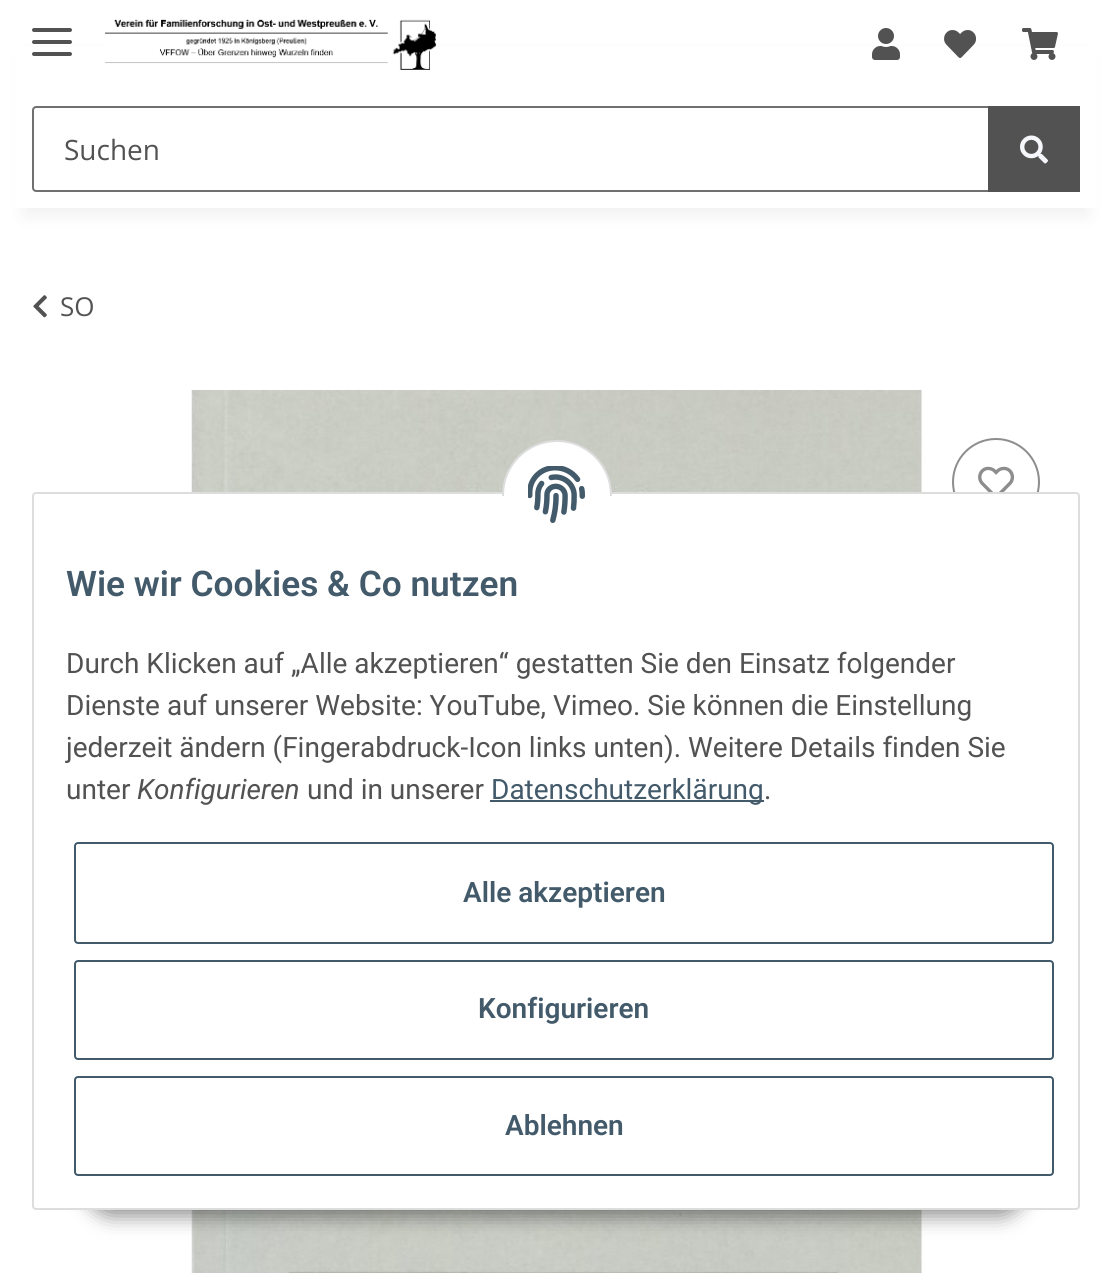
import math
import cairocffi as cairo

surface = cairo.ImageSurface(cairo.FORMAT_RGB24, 1111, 1273)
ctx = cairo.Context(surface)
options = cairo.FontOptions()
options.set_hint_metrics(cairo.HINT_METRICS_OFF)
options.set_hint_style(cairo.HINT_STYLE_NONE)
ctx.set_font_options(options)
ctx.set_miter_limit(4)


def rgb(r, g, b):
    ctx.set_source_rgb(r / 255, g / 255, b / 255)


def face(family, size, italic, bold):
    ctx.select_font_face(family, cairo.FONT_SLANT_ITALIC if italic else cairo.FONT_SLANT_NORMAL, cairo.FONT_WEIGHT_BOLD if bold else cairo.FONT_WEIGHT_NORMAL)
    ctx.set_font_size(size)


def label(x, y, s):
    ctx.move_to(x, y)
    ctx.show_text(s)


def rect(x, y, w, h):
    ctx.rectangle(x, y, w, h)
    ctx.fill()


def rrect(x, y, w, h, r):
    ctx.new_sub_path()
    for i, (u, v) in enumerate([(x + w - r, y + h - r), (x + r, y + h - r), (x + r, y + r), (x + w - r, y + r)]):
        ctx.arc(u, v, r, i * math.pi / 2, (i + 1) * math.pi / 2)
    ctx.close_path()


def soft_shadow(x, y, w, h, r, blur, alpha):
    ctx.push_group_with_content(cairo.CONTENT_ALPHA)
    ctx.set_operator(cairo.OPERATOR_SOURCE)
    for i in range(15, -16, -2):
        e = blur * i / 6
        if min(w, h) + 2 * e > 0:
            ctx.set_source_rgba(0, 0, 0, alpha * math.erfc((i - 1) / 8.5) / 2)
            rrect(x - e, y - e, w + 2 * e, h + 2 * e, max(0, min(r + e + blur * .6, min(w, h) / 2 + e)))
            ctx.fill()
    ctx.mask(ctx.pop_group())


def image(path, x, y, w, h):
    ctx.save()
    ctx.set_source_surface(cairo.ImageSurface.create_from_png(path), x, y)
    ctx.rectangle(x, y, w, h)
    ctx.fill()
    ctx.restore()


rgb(255, 255, 255)
ctx.paint()
rgb(0, 0, 0)
soft_shadow(24, 56, 1064, 160, 0, 9, 0.06)
rgb(255, 255, 255)
rect(15, 47, 1082, 161)
rgb(82, 82, 82)
rrect(32, 40, 40, 4, 2)
ctx.fill()
rrect(32, 28, 40, 4, 2)
ctx.fill()
rrect(32, 52, 40, 4, 2)
ctx.fill()
image('image0.png', 105, 19, 332, 51)
image('image1.png', 872, 28, 28, 32)
image('image2.png', 944, 30, 33, 28)
image('image3.png', 1022, 28, 36, 32)
ctx.new_path()
ctx.move_to(36, 107)
ctx.line_to(989, 107)
ctx.line_to(989, 191)
ctx.line_to(36, 191)
ctx.curve_to(34.5, 191, 33, 189.5, 33, 188)
ctx.line_to(33, 110)
ctx.curve_to(33, 108.5, 34.5, 107, 36, 107)
ctx.close_path()
rgb(112, 112, 112)
ctx.stroke()
face('Open Sans', 28, 0, 0)
rgb(82, 82, 82)
label(64, 160, 'Suchen')
rect(988, 106, 92, 86)
image('image4.png', 1020, 135, 28, 29)
image('image5.png', 33, 295, 14, 23)
face('Open Sans', 26, 0, 0)
label(60, 316, 'SO')
image('image6.png', 191, 390, 732, 883)
ctx.arc(996, 482, 43, 0, 2 * math.pi)
rgb(141, 141, 141)
ctx.stroke()
image('image7.png', 978, 466, 37, 26)
rgb(0, 0, 0)
soft_shadow(86, 1152, 940, 64, 32, 10, 0.45)
rgb(255, 255, 255)
rrect(33, 493, 1046, 716, 3)
ctx.fill_preserve()
rgb(221, 221, 221)
ctx.stroke()
rgb(255, 255, 255)
ctx.arc(557, 495, 54, 0, 2 * math.pi)
ctx.fill_preserve()
rgb(221, 221, 221)
ctx.stroke()
rgb(255, 255, 255)
rect(502, 496, 110, 54)
image('image8.png', 528, 466, 57, 57)
face('Roboto SemiBold', 35.25, 0, 0)
rgb(67, 90, 107)
label(66, 596, 'Wie wir Cookies & Co nutzen')
face('Roboto', 28, 0, 0)
rgb(82, 82, 82)
label(66, 673, 'Durch Klicken auf „Alle akzeptieren“ gestatten Sie den Einsatz folgender')
label(66, 715, 'Dienste auf unserer Website: YouTube, Vimeo. Sie können die Einstellung')
label(66, 757, 'jederzeit ändern (Fingerabdruck-Icon links unten). Weitere Details finden Sie')
label(66, 799, 'unter')
face('Roboto', 28, 1, 0)
label(137, 799, 'Konfigurieren')
face('Roboto', 28, 0, 0)
label(307, 799, 'und in unserer')
rgb(67, 90, 107)
rect(490, 800, 274, 2)
label(491, 799, 'Datenschutzerklärung')
rgb(82, 82, 82)
label(764, 799, '.')
rrect(75, 843, 978, 100, 3)
rgb(67, 90, 107)
ctx.stroke()
face('Roboto SemiBold', 28, 0, 0)
label(463, 902, 'Alle akzeptieren')
rrect(75, 961, 978, 98, 3)
ctx.stroke()
label(478, 1018, 'Konfigurieren')
rrect(75, 1077, 978, 98, 3)
ctx.stroke()
label(505, 1135, 'Ablehnen')
surface.write_to_png('render.png')
